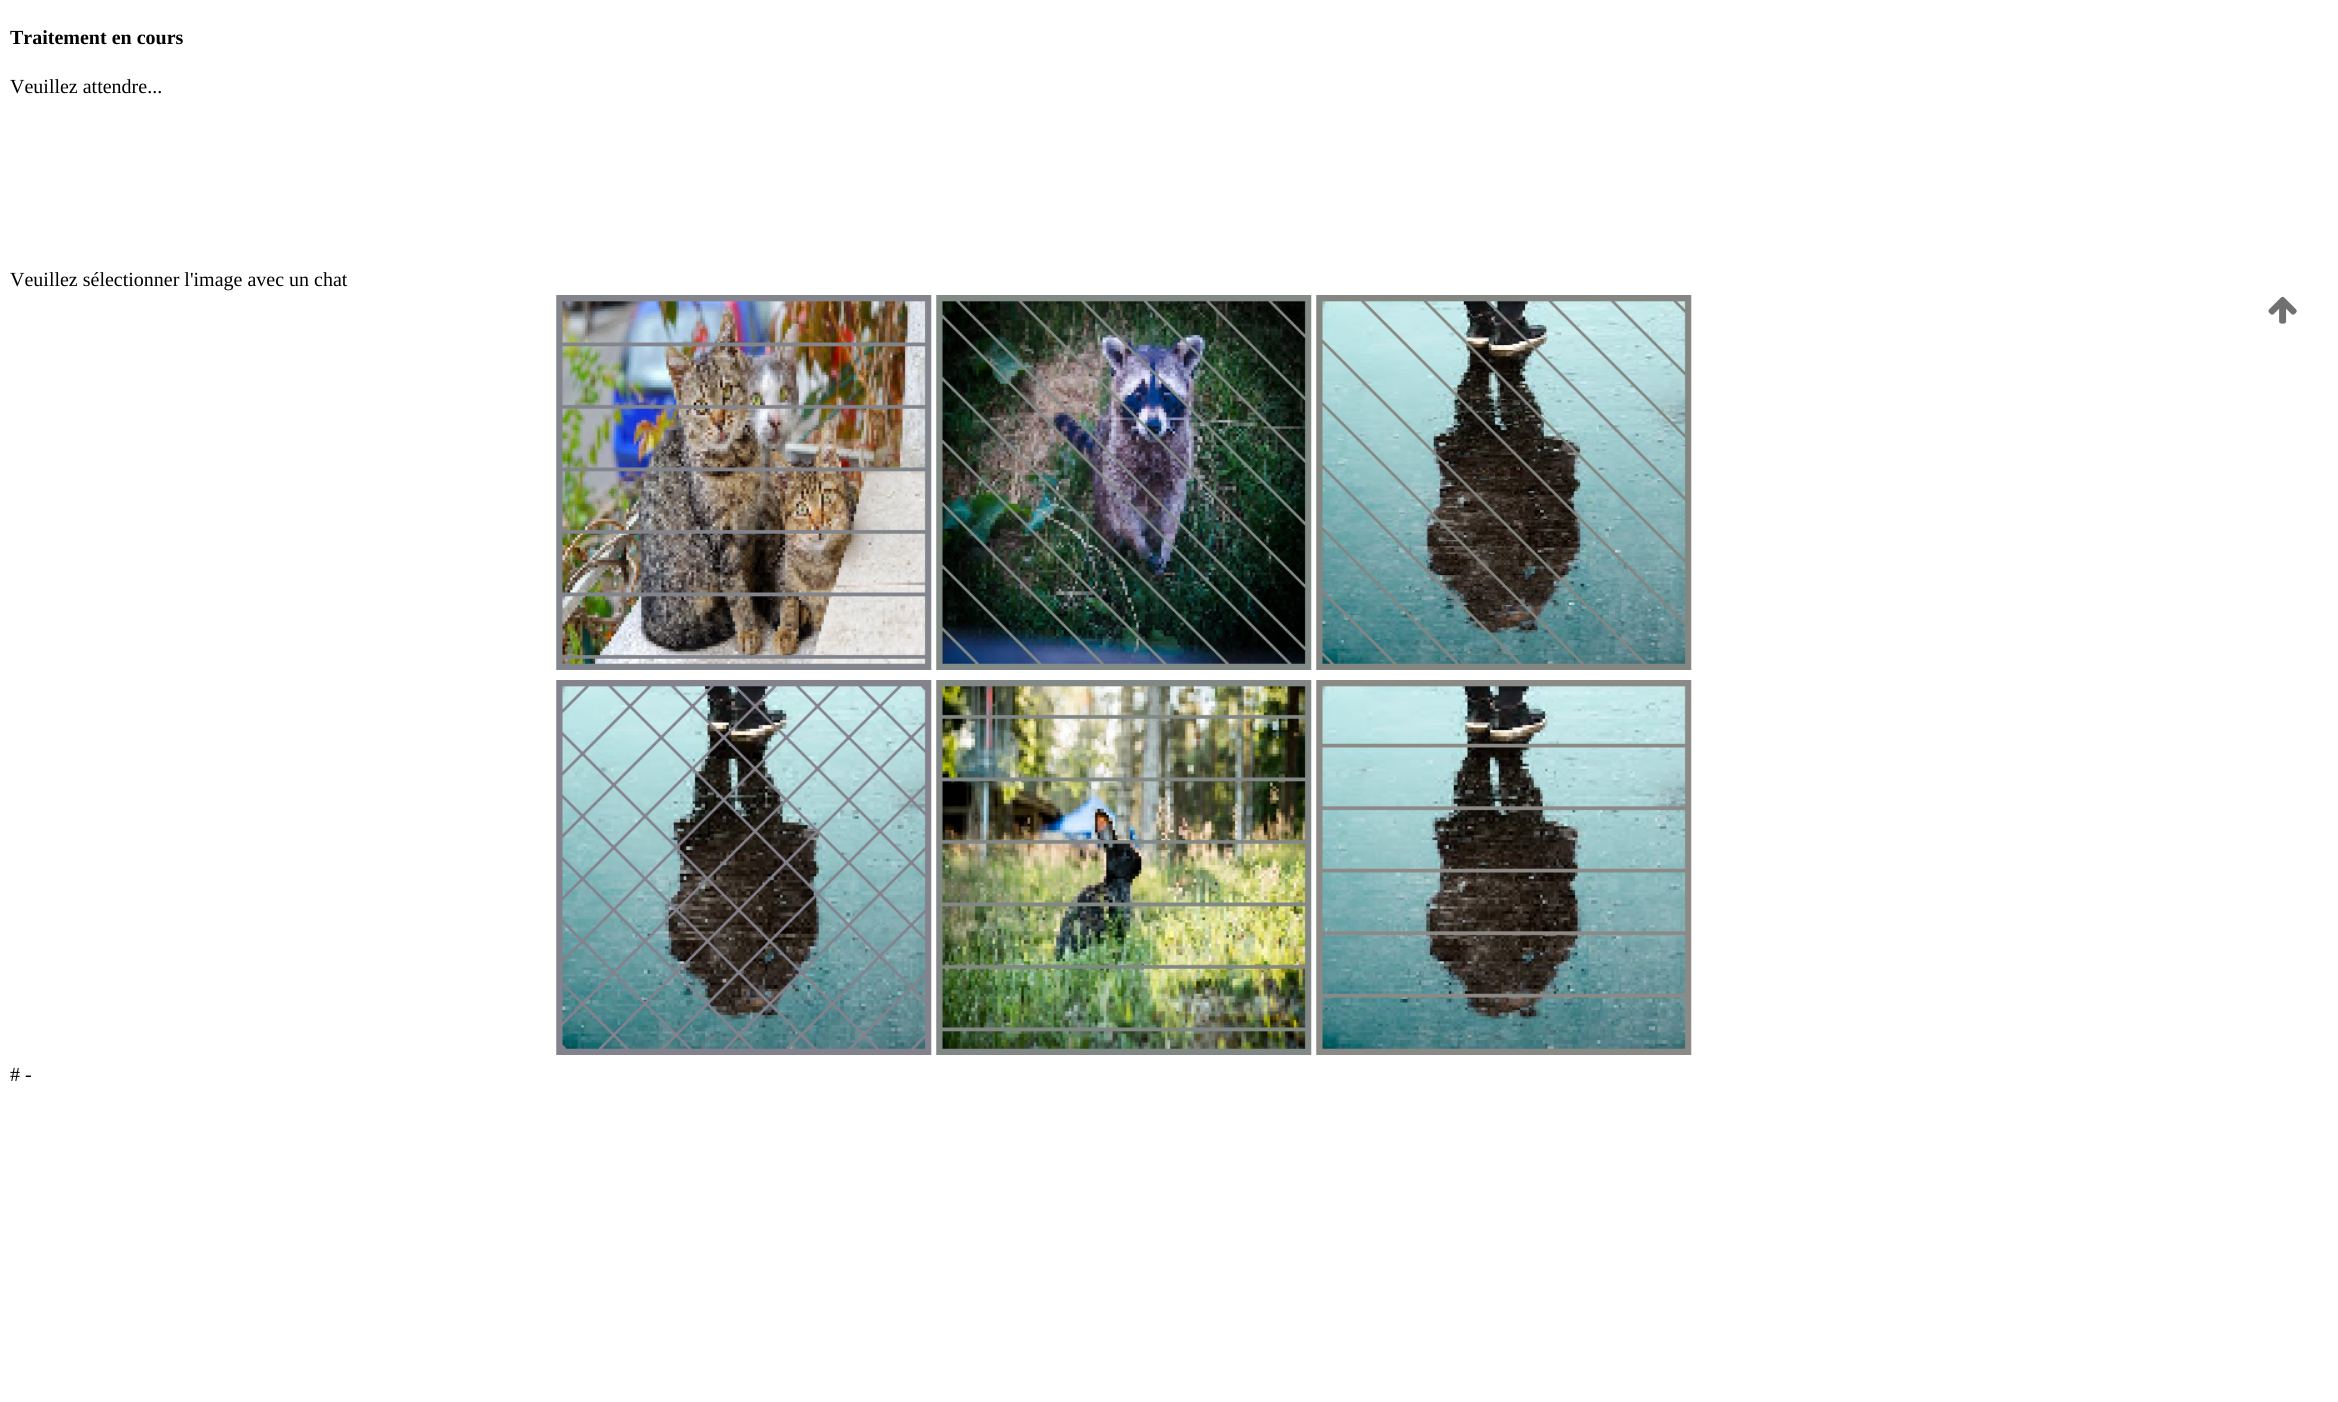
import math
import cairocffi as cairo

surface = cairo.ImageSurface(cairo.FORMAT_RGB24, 2338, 1402)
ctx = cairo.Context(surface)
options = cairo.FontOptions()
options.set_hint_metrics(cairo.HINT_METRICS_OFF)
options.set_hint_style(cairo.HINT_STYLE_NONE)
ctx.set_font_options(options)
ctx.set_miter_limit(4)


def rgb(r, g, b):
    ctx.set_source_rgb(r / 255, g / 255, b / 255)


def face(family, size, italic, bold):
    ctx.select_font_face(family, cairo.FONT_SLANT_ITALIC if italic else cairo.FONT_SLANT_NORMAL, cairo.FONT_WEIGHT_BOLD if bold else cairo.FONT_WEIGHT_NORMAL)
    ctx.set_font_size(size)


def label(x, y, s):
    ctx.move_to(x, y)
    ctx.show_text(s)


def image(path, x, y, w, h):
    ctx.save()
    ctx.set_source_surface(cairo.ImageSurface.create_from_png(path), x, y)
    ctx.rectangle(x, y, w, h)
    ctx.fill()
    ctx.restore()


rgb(255, 255, 255)
ctx.paint()
face('Liberation Serif', 20, 0, 1)
rgb(0, 0, 0)
label(10, 44, 'Traitement en cours')
face('Liberation Serif', 20, 0, 0)
label(10, 93, 'Veuillez attendre...')
label(10, 286, 'Veuillez sélectionner l\'image avec un chat')
image('image0.png', 556, 295, 376, 375)
image('image1.png', 936, 295, 376, 375)
image('image2.png', 1316, 295, 376, 375)
image('image3.png', 556, 680, 376, 375)
image('image4.png', 936, 680, 376, 375)
image('image5.png', 1316, 680, 376, 375)
image('image6.png', 2268, 296, 29, 28)
label(10, 1081, '# -')
surface.write_to_png('render.png')
